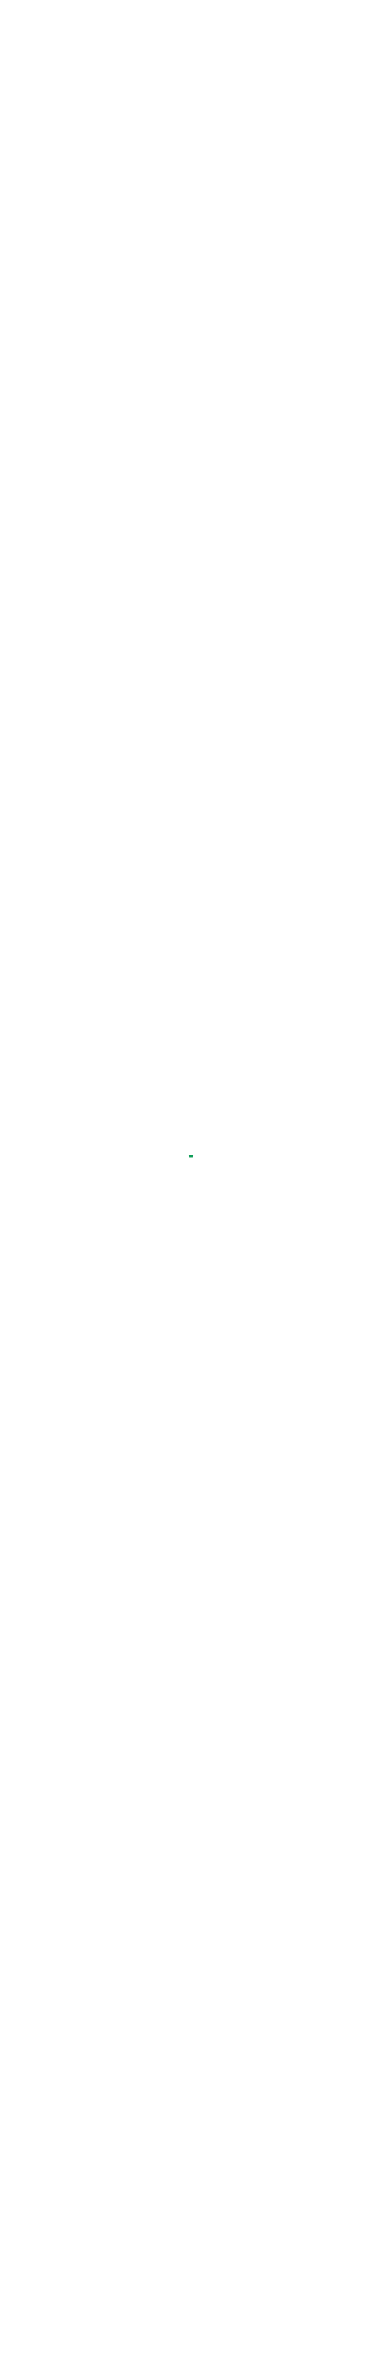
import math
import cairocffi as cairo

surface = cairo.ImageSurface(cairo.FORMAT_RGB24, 382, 2359)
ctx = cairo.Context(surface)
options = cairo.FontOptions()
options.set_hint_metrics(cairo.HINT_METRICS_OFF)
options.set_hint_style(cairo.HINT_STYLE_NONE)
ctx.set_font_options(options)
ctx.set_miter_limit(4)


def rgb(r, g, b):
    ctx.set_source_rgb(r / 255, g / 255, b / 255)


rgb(255, 255, 255)
ctx.paint()
ctx.save()
ctx.rectangle(166, 1155, 25, 50)
ctx.clip()
ctx.new_path()
ctx.move_to(189, 1156)
ctx.curve_to(220, 1153.5, 224, 1200, 193, 1203)
rgb(15, 157, 88)
ctx.set_line_width(3)
ctx.stroke()
ctx.restore()
ctx.save()
ctx.rectangle(191, 1155, 25, 50)
ctx.clip()
ctx.new_path()
ctx.move_to(189, 1203)
ctx.curve_to(158, 1200, 162, 1153.5, 193, 1156)
rgb(15, 157, 88)
ctx.set_line_width(3)
ctx.stroke()
ctx.restore()
surface.write_to_png('render.png')
